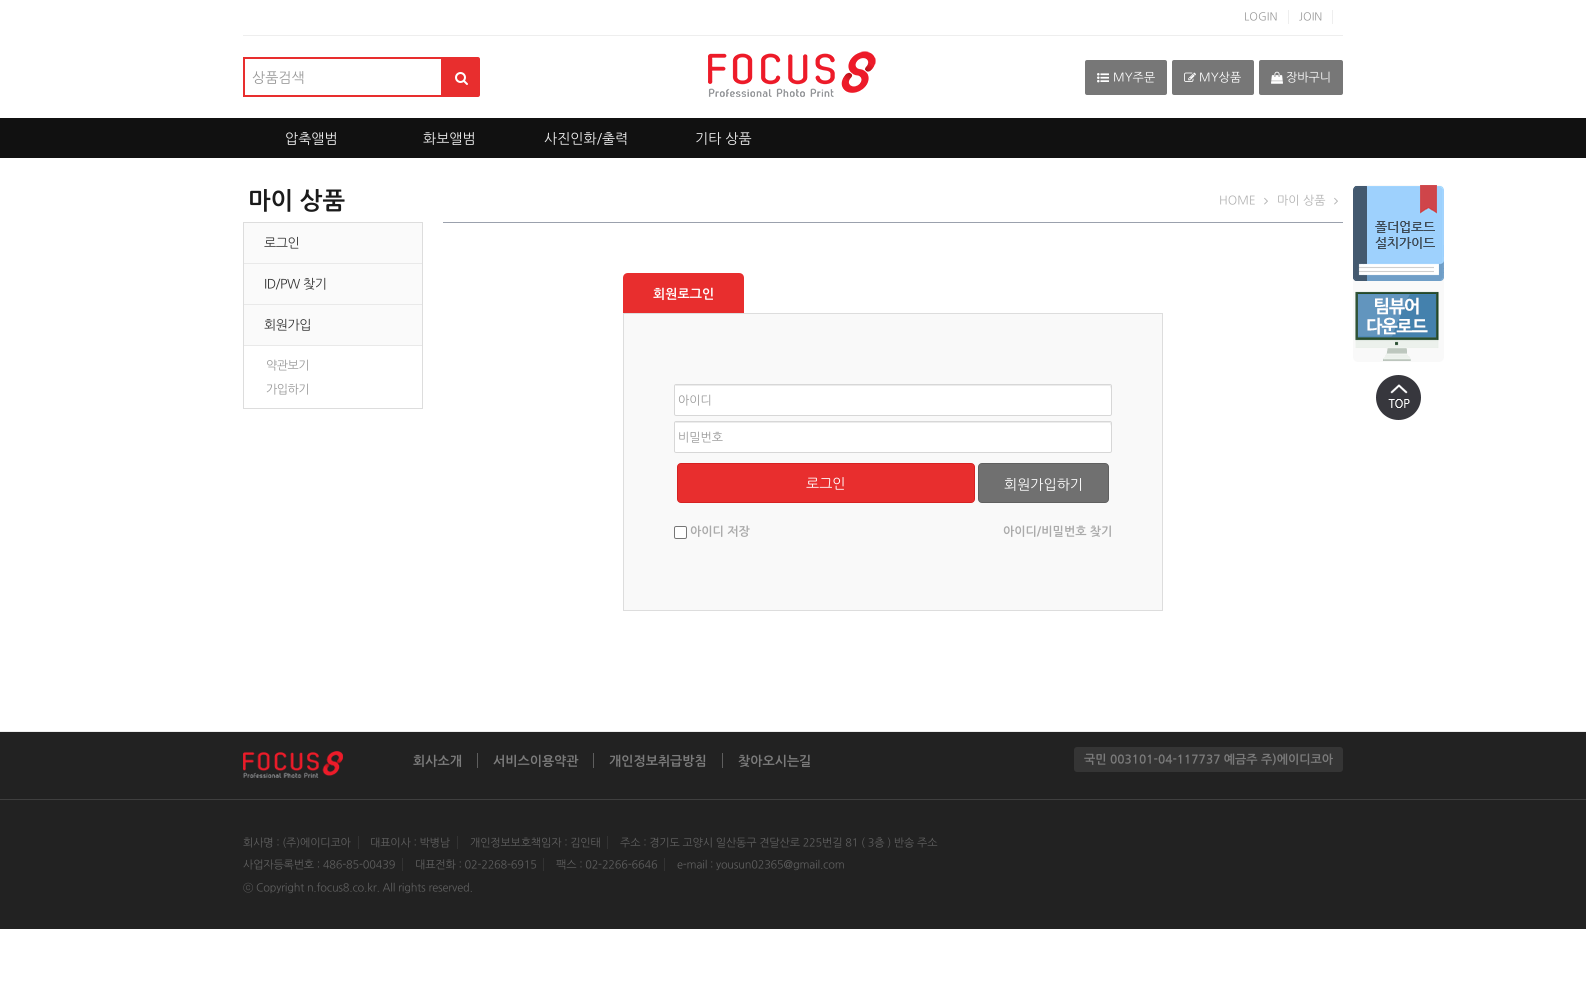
import math
import cairocffi as cairo

surface = cairo.ImageSurface(cairo.FORMAT_RGB24, 1586, 1002)
ctx = cairo.Context(surface)
options = cairo.FontOptions()
options.set_hint_metrics(cairo.HINT_METRICS_OFF)
options.set_hint_style(cairo.HINT_STYLE_NONE)
ctx.set_font_options(options)
ctx.set_miter_limit(4)


def rgb(r, g, b):
    ctx.set_source_rgb(r / 255, g / 255, b / 255)


def face(family, size, italic, bold):
    ctx.select_font_face(family, cairo.FONT_SLANT_ITALIC if italic else cairo.FONT_SLANT_NORMAL, cairo.FONT_WEIGHT_BOLD if bold else cairo.FONT_WEIGHT_NORMAL)
    ctx.set_font_size(size)


def label(x, y, s):
    ctx.move_to(x, y)
    ctx.show_text(s)


def tracked(x, y, s, letter, word):
    ctx.move_to(x, y)
    for ch in s:
        ctx.show_text(ch)
        ctx.rel_move_to(letter + word * (ch == ' '), 0)


def rect(x, y, w, h):
    ctx.rectangle(x, y, w, h)
    ctx.fill()


def rrect(x, y, w, h, r):
    ctx.new_sub_path()
    for i, (u, v) in enumerate([(x + w - r, y + h - r), (x + r, y + h - r), (x + r, y + r), (x + w - r, y + r)]):
        ctx.arc(u, v, r, i * math.pi / 2, (i + 1) * math.pi / 2)
    ctx.close_path()


def image(path, x, y, w, h):
    ctx.save()
    ctx.set_source_surface(cairo.ImageSurface.create_from_png(path), x, y)
    ctx.rectangle(x, y, w, h)
    ctx.fill()
    ctx.restore()


rgb(255, 255, 255)
ctx.paint()
rgb(238, 238, 238)
rect(243, 35, 1100, 1)
rect(1288, 10, 1, 14)
face('NanumGothic', 11, 0, 0)
rgb(153, 153, 153)
label(1244, 20, 'LOGIN')
rgb(238, 238, 238)
rect(1332, 10, 1, 14)
rgb(153, 153, 153)
label(1299, 20, 'JOIN')
ctx.rectangle(244, 58, 198, 38)
rgb(232, 46, 46)
ctx.stroke()
face('NanumGothic', 14, 0, 0)
rgb(153, 153, 153)
label(252, 82, '상품검색')
rgb(232, 46, 46)
ctx.new_path()
ctx.move_to(443, 57)
ctx.line_to(478, 57)
ctx.curve_to(479, 57, 480, 58, 480, 59)
ctx.line_to(480, 95)
ctx.curve_to(480, 96, 479, 97, 478, 97)
ctx.line_to(443, 97)
ctx.close_path()
ctx.fill()
image('image0.png', 455, 72, 13, 13)
image('image1.png', 708, 51, 168, 46)
rgb(119, 119, 119)
rrect(1085, 60, 82, 35, 2)
ctx.fill()
image('image2.png', 1097, 73, 12, 10)
face('NanumGothic', 12, 0, 0)
rgb(255, 255, 255)
label(1113, 81, 'MY주문')
rgb(119, 119, 119)
rrect(1172, 60, 82, 35, 2)
ctx.fill()
image('image3.png', 1184, 72, 12, 10)
rgb(255, 255, 255)
label(1199, 81, 'MY상품')
rgb(119, 119, 119)
rrect(1259, 60, 84, 35, 2)
ctx.fill()
image('image4.png', 1271, 71, 12, 13)
rgb(255, 255, 255)
label(1286, 81, '장바구니')
rgb(17, 17, 17)
rect(0, 118, 1586, 40)
face('NanumGothic', 14, 0, 0)
rgb(238, 238, 238)
label(285, 143, '압축앨범')
label(423, 143, '화보앨범')
label(544, 143, '사진인화/출력')
label(695, 143, '기타 상품')
face('NanumGothic', 24, 0, 1)
rgb(27, 27, 27)
label(248, 208, '마이 상품')
ctx.rectangle(243.5, 222.5, 179, 186)
rgb(221, 221, 221)
ctx.set_line_width(1)
ctx.stroke()
rgb(250, 250, 250)
rect(244, 223, 178, 40)
rgb(233, 233, 233)
rect(244, 263, 178, 1)
face('NanumGothic', 13, 0, 0)
rgb(51, 51, 51)
tracked(264, 247, '로그인', -0.5, 0)
rgb(250, 250, 250)
rect(244, 264, 178, 40)
rgb(233, 233, 233)
rect(244, 304, 178, 1)
rgb(51, 51, 51)
tracked(264, 288, 'ID/PW 찾기', -0.5, 0)
rgb(250, 250, 250)
rect(244, 305, 178, 40)
rgb(51, 51, 51)
tracked(264, 329, '회원가입', -0.5, 0)
rgb(233, 233, 233)
rect(244, 345, 178, 1)
face('NanumGothic', 12, 0, 0)
rgb(153, 153, 153)
tracked(266, 369, '약관보기', -0.5, 0)
tracked(266, 393, '가입하기', -0.5, 0)
rgb(155, 161, 173)
rect(443, 222, 900, 1)
rgb(178, 178, 178)
label(1219, 204, 'HOME')
image('image5.png', 1264, 197, 4, 8)
label(1277, 204, '마이 상품')
image('image5.png', 1334, 197, 4, 8)
rgb(232, 46, 46)
ctx.new_path()
ctx.move_to(628, 273)
ctx.line_to(739, 273)
ctx.curve_to(742, 273, 744, 275, 744, 278)
ctx.line_to(744, 314)
ctx.line_to(623, 314)
ctx.line_to(623, 278)
ctx.curve_to(623, 275, 625, 273, 628, 273)
ctx.close_path()
ctx.fill()
face('NanumGothic', 13, 0, 1)
rgb(255, 255, 255)
label(653, 298, '회원로그인')
rgb(249, 249, 249)
ctx.rectangle(623.5, 313.5, 539, 297)
ctx.fill_preserve()
rgb(221, 221, 221)
ctx.stroke()
rgb(255, 255, 255)
rrect(674, 384, 438, 32, 2)
ctx.fill()
rgb(236, 236, 236)
ctx.new_path()
ctx.move_to(676, 385)
ctx.line_to(675, 386)
ctx.line_to(1110, 386)
ctx.line_to(1111, 389)
ctx.curve_to(1111, 388, 1112, 385, 1110, 385)
ctx.close_path()
ctx.fill()
rrect(674.5, 384.5, 437, 31, 1.5)
rgb(215, 215, 215)
ctx.stroke()
face('NanumGothic', 12, 0, 0)
rgb(153, 153, 153)
label(678, 404, '아이디')
rgb(255, 255, 255)
rrect(674, 421, 438, 32, 2)
ctx.fill()
rgb(236, 236, 236)
ctx.new_path()
ctx.move_to(676, 422)
ctx.line_to(675, 423)
ctx.line_to(1110, 423)
ctx.line_to(1111, 426)
ctx.curve_to(1111, 425, 1112, 422, 1110, 422)
ctx.close_path()
ctx.fill()
rrect(674.5, 421.5, 437, 31, 1.5)
rgb(215, 215, 215)
ctx.stroke()
rgb(153, 153, 153)
label(678, 441, '비밀번호')
rgb(232, 46, 46)
rrect(677.5, 463.5, 297, 39, 3.5)
ctx.fill_preserve()
rgb(214, 33, 33)
ctx.stroke()
face('NanumGothic', 14, 0, 0)
rgb(255, 255, 255)
label(806, 488, '로그인')
rgb(112, 112, 112)
rrect(978.5, 463.5, 130, 39, 3.5)
ctx.fill_preserve()
rgb(96, 96, 96)
ctx.stroke()
rgb(255, 255, 255)
label(1004, 489, '회원가입하기')
rrect(674.5, 526.5, 12, 12, 1.5)
ctx.fill_preserve()
rgb(118, 118, 118)
ctx.stroke()
face('NanumGothic', 12, 0, 1)
rgb(170, 170, 170)
label(690, 535, '아이디 저장')
label(1003, 535, '아이디/비밀번호 찾기')
rgb(249, 249, 249)
rrect(1353, 185, 91, 177, 5)
ctx.fill()
image('image6.png', 1353, 185, 91, 96)
image('image7.png', 1355, 291, 84, 70)
image('image8.png', 1376, 375, 45, 45)
rgb(34, 34, 34)
rect(0, 732, 1586, 67)
rgb(238, 238, 238)
rect(0, 731, 1586, 1)
rgb(63, 63, 63)
rect(0, 799, 1586, 1)
image('image9.png', 243, 751, 100, 27)
face('NanumGothic', 13, 0, 1)
rgb(123, 123, 123)
label(413, 765, '회사소개')
rgb(94, 94, 94)
rect(477, 753, 1, 15)
rgb(123, 123, 123)
label(493, 765, '서비스이용약관')
rgb(94, 94, 94)
rect(593, 753, 1, 15)
rgb(123, 123, 123)
label(609, 765, '개인정보취급방침')
rgb(94, 94, 94)
rect(722, 753, 1, 15)
rgb(123, 123, 123)
label(738, 765, '찾아오시는길')
rgb(53, 53, 53)
rrect(1074, 747, 269, 25, 3)
ctx.fill()
face('NanumGothic', 12, 0, 1)
rgb(123, 123, 123)
label(1084, 763, '국민 003101-04-117737 예금주 주)에이디코아')
rgb(34, 34, 34)
rect(0, 800, 1586, 129)
face('NanumGothic', 11, 0, 0)
rgb(96, 96, 96)
tracked(243, 846, '회사명 : (주)에이디코아', -0.2, 0)
rgb(51, 51, 51)
rect(358, 836, 1, 13)
rgb(96, 96, 96)
tracked(370, 846, '대표이사 : 박병남', -0.2, 0)
rgb(51, 51, 51)
rect(457, 836, 1, 13)
rgb(96, 96, 96)
tracked(470, 846, '개인정보보호책임자 : 김인태', -0.2, 0)
rgb(51, 51, 51)
rect(607, 836, 1, 13)
rgb(96, 96, 96)
tracked(620, 846, '주소 : 경기도 고양시 일산동구 견달산로 225번길 81 ( 3층 ) 반송 주소', -0.2, 0)
tracked(243, 868, '사업자등록번호 : 486-85-00439', -0.2, 0)
rgb(51, 51, 51)
rect(402, 858, 1, 13)
rgb(96, 96, 96)
tracked(415, 868, '대표전화 : 02-2268-6915', -0.2, 0)
rgb(51, 51, 51)
rect(543, 858, 1, 13)
rgb(96, 96, 96)
tracked(556, 868, '팩스 : 02-2266-6646', -0.2, 0)
rgb(51, 51, 51)
rect(664, 858, 1, 13)
rgb(96, 96, 96)
tracked(677, 868, 'e-mail : yousun02365@gmail.com', -0.2, 0)
tracked(243, 891, 'ⓒ Copyright n.focus8.co.kr. All rights reserved.', -0.2, 0)
surface.write_to_png('render.png')
